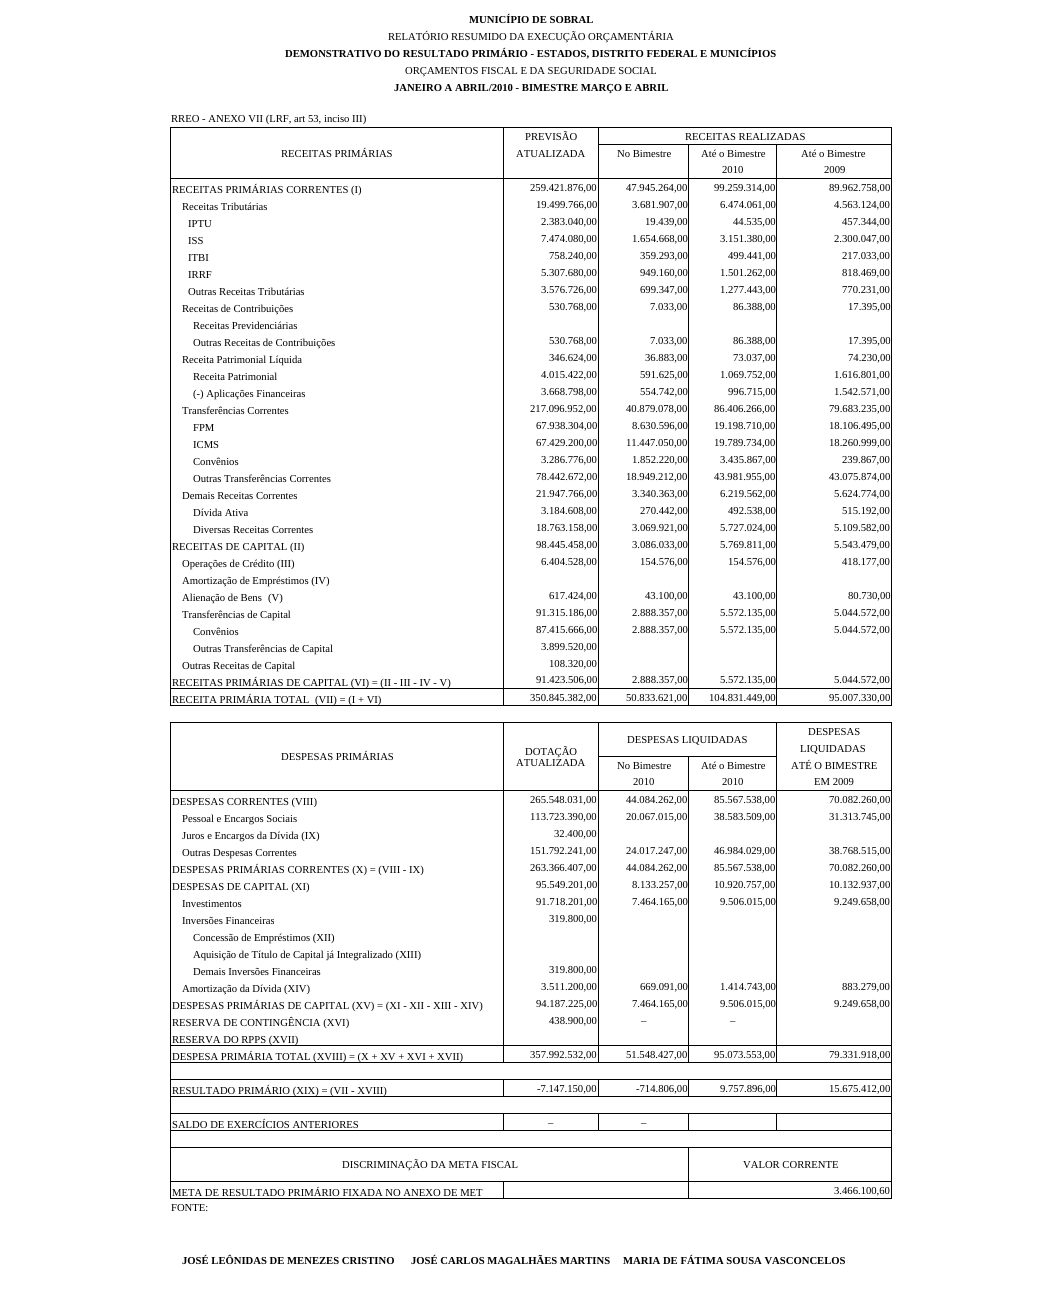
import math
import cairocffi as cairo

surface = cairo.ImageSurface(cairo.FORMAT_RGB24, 1062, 1315)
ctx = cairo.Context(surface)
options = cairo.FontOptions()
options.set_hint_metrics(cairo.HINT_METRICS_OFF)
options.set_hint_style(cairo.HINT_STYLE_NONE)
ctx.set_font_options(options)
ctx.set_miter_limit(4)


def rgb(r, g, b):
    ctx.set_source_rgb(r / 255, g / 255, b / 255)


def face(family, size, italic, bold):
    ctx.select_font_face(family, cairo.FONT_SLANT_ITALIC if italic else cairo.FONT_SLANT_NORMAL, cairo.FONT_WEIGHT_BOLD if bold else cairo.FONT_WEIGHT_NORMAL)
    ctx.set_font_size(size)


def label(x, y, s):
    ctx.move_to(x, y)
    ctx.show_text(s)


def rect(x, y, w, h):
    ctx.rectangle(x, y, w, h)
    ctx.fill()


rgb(255, 255, 255)
ctx.paint()
face('Liberation Serif', 10.65, 0, 1)
rgb(0, 0, 0)
label(469, 23, 'MUNICÍPIO DE SOBRAL')
face('Liberation Serif', 10.65, 0, 0)
label(388, 40, 'RELATÓRIO RESUMIDO DA EXECUÇÃO ORÇAMENTÁRIA')
face('Liberation Serif', 10.65, 0, 1)
label(285, 57, 'DEMONSTRATIVO DO RESULTADO PRIMÁRIO - ESTADOS, DISTRITO FEDERAL E MUNICÍPIOS')
face('Liberation Serif', 10.65, 0, 0)
label(405, 74, 'ORÇAMENTOS FISCAL E DA SEGURIDADE SOCIAL')
face('Liberation Serif', 10.65, 0, 1)
label(394, 91, 'JANEIRO A ABRIL/2010 - BIMESTRE MARÇO E ABRIL')
face('Liberation Serif', 10.65, 0, 0)
label(171, 122, 'RREO - ANEXO VII (LRF, art 53, inciso III)')
rect(598, 127, 294, 1)
rect(776, 688, 116, 1)
rect(891, 144, 1, 562)
rect(891, 127, 1, 18)
rect(776, 705, 116, 1)
rect(776, 178, 1, 528)
rect(776, 178, 116, 1)
rect(776, 144, 1, 35)
rect(170, 688, 519, 1)
rect(688, 705, 89, 1)
rect(688, 688, 1, 18)
rect(688, 688, 89, 1)
rect(688, 178, 1, 511)
rect(688, 178, 89, 1)
rect(688, 144, 1, 35)
rect(598, 705, 91, 1)
rect(598, 178, 1, 528)
rect(598, 178, 91, 1)
rect(598, 144, 1, 35)
rect(598, 144, 294, 1)
rect(598, 127, 1, 18)
rect(170, 127, 429, 1)
rect(503, 705, 96, 1)
rect(503, 178, 1, 528)
rect(503, 178, 96, 1)
rect(503, 144, 1, 35)
rect(503, 127, 1, 18)
rect(170, 705, 334, 1)
rect(170, 178, 1, 528)
rect(170, 178, 334, 1)
rect(170, 144, 1, 35)
rect(170, 127, 1, 18)
label(525, 140, 'PREVISÃO')
label(685, 140, 'RECEITAS REALIZADAS')
label(281, 157, 'RECEITAS PRIMÁRIAS')
label(516, 157, 'ATUALIZADA')
label(617, 157, 'No Bimestre')
label(701, 157, 'Até o Bimestre')
label(801, 157, 'Até o Bimestre')
label(722, 173, '2010')
label(824, 173, '2009')
label(172, 193, 'RECEITAS PRIMÁRIAS CORRENTES (I)')
label(530, 191, '259.421.876,00')
label(626, 191, '47.945.264,00')
label(714, 191, '99.259.314,00')
label(829, 191, '89.962.758,00')
label(182, 210, 'Receitas Tributárias')
label(536, 208, '19.499.766,00')
label(632, 208, '3.681.907,00')
label(720, 208, '6.474.061,00')
label(834, 208, '4.563.124,00')
label(188, 227, 'IPTU')
label(541, 225, '2.383.040,00')
label(645, 225, '19.439,00')
label(733, 225, '44.535,00')
label(842, 225, '457.344,00')
label(188, 244, 'ISS')
label(541, 242, '7.474.080,00')
label(632, 242, '1.654.668,00')
label(720, 242, '3.151.380,00')
label(834, 242, '2.300.047,00')
label(188, 261, 'ITBI')
label(549, 259, '758.240,00')
label(640, 259, '359.293,00')
label(728, 259, '499.441,00')
label(842, 259, '217.033,00')
label(188, 278, 'IRRF')
label(541, 276, '5.307.680,00')
label(640, 276, '949.160,00')
label(720, 276, '1.501.262,00')
label(842, 276, '818.469,00')
label(188, 295, 'Outras Receitas Tributárias')
label(541, 293, '3.576.726,00')
label(640, 293, '699.347,00')
label(720, 293, '1.277.443,00')
label(842, 293, '770.231,00')
label(182, 312, 'Receitas de Contribuições')
label(549, 310, '530.768,00')
label(650, 310, '7.033,00')
label(733, 310, '86.388,00')
label(848, 310, '17.395,00')
label(193, 329, 'Receitas Previdenciárias')
label(193, 346, 'Outras Receitas de Contribuições')
label(549, 344, '530.768,00')
label(650, 344, '7.033,00')
label(733, 344, '86.388,00')
label(848, 344, '17.395,00')
label(182, 363, 'Receita Patrimonial Líquida')
label(549, 361, '346.624,00')
label(645, 361, '36.883,00')
label(733, 361, '73.037,00')
label(848, 361, '74.230,00')
label(193, 380, 'Receita Patrimonial')
label(541, 378, '4.015.422,00')
label(640, 378, '591.625,00')
label(720, 378, '1.069.752,00')
label(834, 378, '1.616.801,00')
label(193, 397, '(-) Aplicações Financeiras')
label(541, 395, '3.668.798,00')
label(640, 395, '554.742,00')
label(728, 395, '996.715,00')
label(834, 395, '1.542.571,00')
label(182, 414, 'Transferências Correntes')
label(530, 412, '217.096.952,00')
label(626, 412, '40.879.078,00')
label(714, 412, '86.406.266,00')
label(829, 412, '79.683.235,00')
label(193, 431, 'FPM')
label(536, 429, '67.938.304,00')
label(632, 429, '8.630.596,00')
label(714, 429, '19.198.710,00')
label(829, 429, '18.106.495,00')
label(193, 448, 'ICMS')
label(536, 446, '67.429.200,00')
label(626, 446, '11.447.050,00')
label(714, 446, '19.789.734,00')
label(829, 446, '18.260.999,00')
label(193, 465, 'Convênios')
label(541, 463, '3.286.776,00')
label(632, 463, '1.852.220,00')
label(720, 463, '3.435.867,00')
label(842, 463, '239.867,00')
label(193, 482, 'Outras Transferências Correntes')
label(536, 480, '78.442.672,00')
label(626, 480, '18.949.212,00')
label(714, 480, '43.981.955,00')
label(829, 480, '43.075.874,00')
label(182, 499, 'Demais Receitas Correntes')
label(536, 497, '21.947.766,00')
label(632, 497, '3.340.363,00')
label(720, 497, '6.219.562,00')
label(834, 497, '5.624.774,00')
label(193, 516, 'Dívida Ativa')
label(541, 514, '3.184.608,00')
label(640, 514, '270.442,00')
label(728, 514, '492.538,00')
label(842, 514, '515.192,00')
label(193, 533, 'Diversas Receitas Correntes')
label(536, 531, '18.763.158,00')
label(632, 531, '3.069.921,00')
label(720, 531, '5.727.024,00')
label(834, 531, '5.109.582,00')
label(172, 550, 'RECEITAS DE CAPITAL (II)')
label(536, 548, '98.445.458,00')
label(632, 548, '3.086.033,00')
label(720, 548, '5.769.811,00')
label(834, 548, '5.543.479,00')
label(182, 567, 'Operações de Crédito (III)')
label(541, 565, '6.404.528,00')
label(640, 565, '154.576,00')
label(728, 565, '154.576,00')
label(842, 565, '418.177,00')
label(182, 584, 'Amortização de Empréstimos (IV)')
label(182, 601, 'Alienação de Bens')
label(268, 601, '(V)')
label(549, 599, '617.424,00')
label(645, 599, '43.100,00')
label(733, 599, '43.100,00')
label(848, 599, '80.730,00')
label(182, 618, 'Transferências de Capital')
label(536, 616, '91.315.186,00')
label(632, 616, '2.888.357,00')
label(720, 616, '5.572.135,00')
label(834, 616, '5.044.572,00')
label(193, 635, 'Convênios')
label(536, 633, '87.415.666,00')
label(632, 633, '2.888.357,00')
label(720, 633, '5.572.135,00')
label(834, 633, '5.044.572,00')
label(193, 652, 'Outras Transferências de Capital')
label(541, 650, '3.899.520,00')
label(182, 669, 'Outras Receitas de Capital')
label(549, 667, '108.320,00')
label(172, 686, 'RECEITAS PRIMÁRIAS DE CAPITAL (VI) = (II - III - IV - V)')
label(536, 683, '91.423.506,00')
label(632, 683, '2.888.357,00')
label(720, 683, '5.572.135,00')
label(834, 683, '5.044.572,00')
label(172, 703, 'RECEITA PRIMÁRIA TOTAL')
label(315, 703, '(VII) = (I + VI)')
label(530, 701, '350.845.382,00')
label(626, 701, '50.833.621,00')
label(709, 701, '104.831.449,00')
label(829, 701, '95.007.330,00')
rect(503, 722, 389, 1)
rect(776, 1045, 116, 1)
rect(891, 1062, 1, 137)
rect(891, 739, 1, 324)
rect(891, 722, 1, 18)
label(808, 735, 'DESPESAS')
rect(776, 1062, 116, 1)
rect(776, 1045, 1, 18)
rect(688, 1045, 89, 1)
rect(776, 790, 1, 256)
rect(776, 790, 116, 1)
rect(776, 756, 1, 35)
rect(776, 722, 1, 35)
rect(688, 1062, 89, 1)
rect(688, 1045, 1, 18)
rect(598, 1045, 91, 1)
rect(688, 790, 1, 256)
rect(688, 790, 89, 1)
rect(688, 756, 1, 35)
rect(598, 756, 179, 1)
label(627, 743, 'DESPESAS LIQUIDADAS')
rect(598, 1062, 91, 1)
rect(598, 1045, 1, 18)
rect(503, 1045, 96, 1)
rect(598, 790, 1, 256)
rect(598, 790, 91, 1)
rect(598, 722, 1, 69)
rect(503, 1062, 96, 1)
rect(503, 1045, 1, 18)
rect(170, 1045, 334, 1)
rect(503, 790, 1, 256)
rect(503, 790, 96, 1)
rect(503, 722, 1, 69)
rect(170, 722, 334, 1)
rect(776, 1096, 116, 1)
rect(776, 1079, 1, 18)
rect(688, 1096, 89, 1)
rect(688, 1079, 1, 18)
rect(598, 1096, 91, 1)
rect(598, 1079, 1, 18)
rect(503, 1096, 96, 1)
rect(503, 1079, 1, 18)
rect(776, 1130, 116, 1)
rect(776, 1113, 1, 18)
rect(688, 1130, 89, 1)
rect(688, 1113, 1, 18)
rect(598, 1130, 91, 1)
rect(598, 1113, 1, 18)
rect(503, 1130, 96, 1)
rect(503, 1113, 1, 18)
rect(688, 1198, 204, 1)
rect(688, 1181, 1, 18)
rect(170, 1181, 722, 1)
rect(688, 1147, 1, 35)
rect(503, 1198, 186, 1)
rect(503, 1181, 1, 18)
rect(170, 1198, 334, 1)
rect(170, 1147, 1, 52)
rect(170, 1147, 722, 1)
rect(170, 1130, 1, 18)
rect(170, 1130, 334, 1)
rect(170, 1113, 1, 18)
rect(170, 1113, 722, 1)
rect(170, 1096, 1, 18)
rect(170, 1096, 334, 1)
rect(170, 1079, 1, 18)
rect(170, 1079, 722, 1)
rect(170, 1062, 1, 18)
rect(170, 1062, 334, 1)
rect(170, 790, 1, 273)
rect(170, 790, 334, 1)
rect(170, 722, 1, 69)
label(281, 760, 'DESPESAS PRIMÁRIAS')
label(525, 755, 'DOTAÇÃO')
label(516, 766, 'ATUALIZADA')
label(800, 752, 'LIQUIDADAS')
label(617, 769, 'No Bimestre')
label(701, 769, 'Até o Bimestre')
label(791, 769, 'ATÉ O BIMESTRE')
label(633, 785, '2010')
label(722, 785, '2010')
label(814, 785, 'EM 2009')
label(172, 805, 'DESPESAS CORRENTES (VIII)')
label(530, 803, '265.548.031,00')
label(626, 803, '44.084.262,00')
label(714, 803, '85.567.538,00')
label(829, 803, '70.082.260,00')
label(182, 822, 'Pessoal e Encargos Sociais')
label(530, 820, '113.723.390,00')
label(626, 820, '20.067.015,00')
label(714, 820, '38.583.509,00')
label(829, 820, '31.313.745,00')
label(182, 839, 'Juros e Encargos da Dívida (IX)')
label(554, 837, '32.400,00')
label(182, 856, 'Outras Despesas Correntes')
label(530, 854, '151.792.241,00')
label(626, 854, '24.017.247,00')
label(714, 854, '46.984.029,00')
label(829, 854, '38.768.515,00')
label(172, 873, 'DESPESAS PRIMÁRIAS CORRENTES (X) = (VIII - IX)')
label(530, 871, '263.366.407,00')
label(626, 871, '44.084.262,00')
label(714, 871, '85.567.538,00')
label(829, 871, '70.082.260,00')
label(172, 890, 'DESPESAS DE CAPITAL (XI)')
label(536, 888, '95.549.201,00')
label(632, 888, '8.133.257,00')
label(714, 888, '10.920.757,00')
label(829, 888, '10.132.937,00')
label(182, 907, 'Investimentos')
label(536, 905, '91.718.201,00')
label(632, 905, '7.464.165,00')
label(720, 905, '9.506.015,00')
label(834, 905, '9.249.658,00')
label(182, 924, 'Inversões Financeiras')
label(549, 922, '319.800,00')
label(193, 941, 'Concessão de Empréstimos (XII)')
label(193, 958, 'Aquisição de Título de Capital já Integralizado (XIII)')
label(193, 975, 'Demais Inversões Financeiras')
label(549, 973, '319.800,00')
label(182, 992, 'Amortização da Dívida (XIV)')
label(541, 990, '3.511.200,00')
label(640, 990, '669.091,00')
label(720, 990, '1.414.743,00')
label(842, 990, '883.279,00')
label(172, 1009, 'DESPESAS PRIMÁRIAS DE CAPITAL (XV) = (XI - XII - XIII - XIV)')
label(536, 1007, '94.187.225,00')
label(632, 1007, '7.464.165,00')
label(720, 1007, '9.506.015,00')
label(834, 1007, '9.249.658,00')
label(172, 1026, 'RESERVA DE CONTINGÊNCIA (XVI)')
label(549, 1024, '438.900,00')
label(641, 1024, '–')
label(730, 1024, '–')
label(172, 1043, 'RESERVA DO RPPS (XVII)')
label(172, 1060, 'DESPESA PRIMÁRIA TOTAL (XVIII) = (X + XV + XVI + XVII)')
label(530, 1058, '357.992.532,00')
label(626, 1058, '51.548.427,00')
label(714, 1058, '95.073.553,00')
label(829, 1058, '79.331.918,00')
label(172, 1094, 'RESULTADO PRIMÁRIO (XIX) = (VII - XVIII)')
label(537, 1092, '-7.147.150,00')
label(636, 1092, '-714.806,00')
label(720, 1092, '9.757.896,00')
label(829, 1092, '15.675.412,00')
label(172, 1128, 'SALDO DE EXERCÍCIOS ANTERIORES')
label(548, 1126, '–')
label(641, 1126, '–')
label(342, 1168, 'DISCRIMINAÇÃO DA META FISCAL')
label(743, 1168, 'VALOR CORRENTE')
label(172, 1196, 'META DE RESULTADO PRIMÁRIO FIXADA NO ANEXO DE MET')
label(834, 1194, '3.466.100,60')
label(171, 1211, 'FONTE:')
face('Liberation Serif', 10.65, 0, 1)
label(182, 1264, 'JOSÉ LEÔNIDAS DE MENEZES CRISTINO')
label(411, 1264, 'JOSÉ CARLOS MAGALHÃES MARTINS')
label(623, 1264, 'MARIA DE FÁTIMA SOUSA VASCONCELOS')
surface.write_to_png('render.png')
